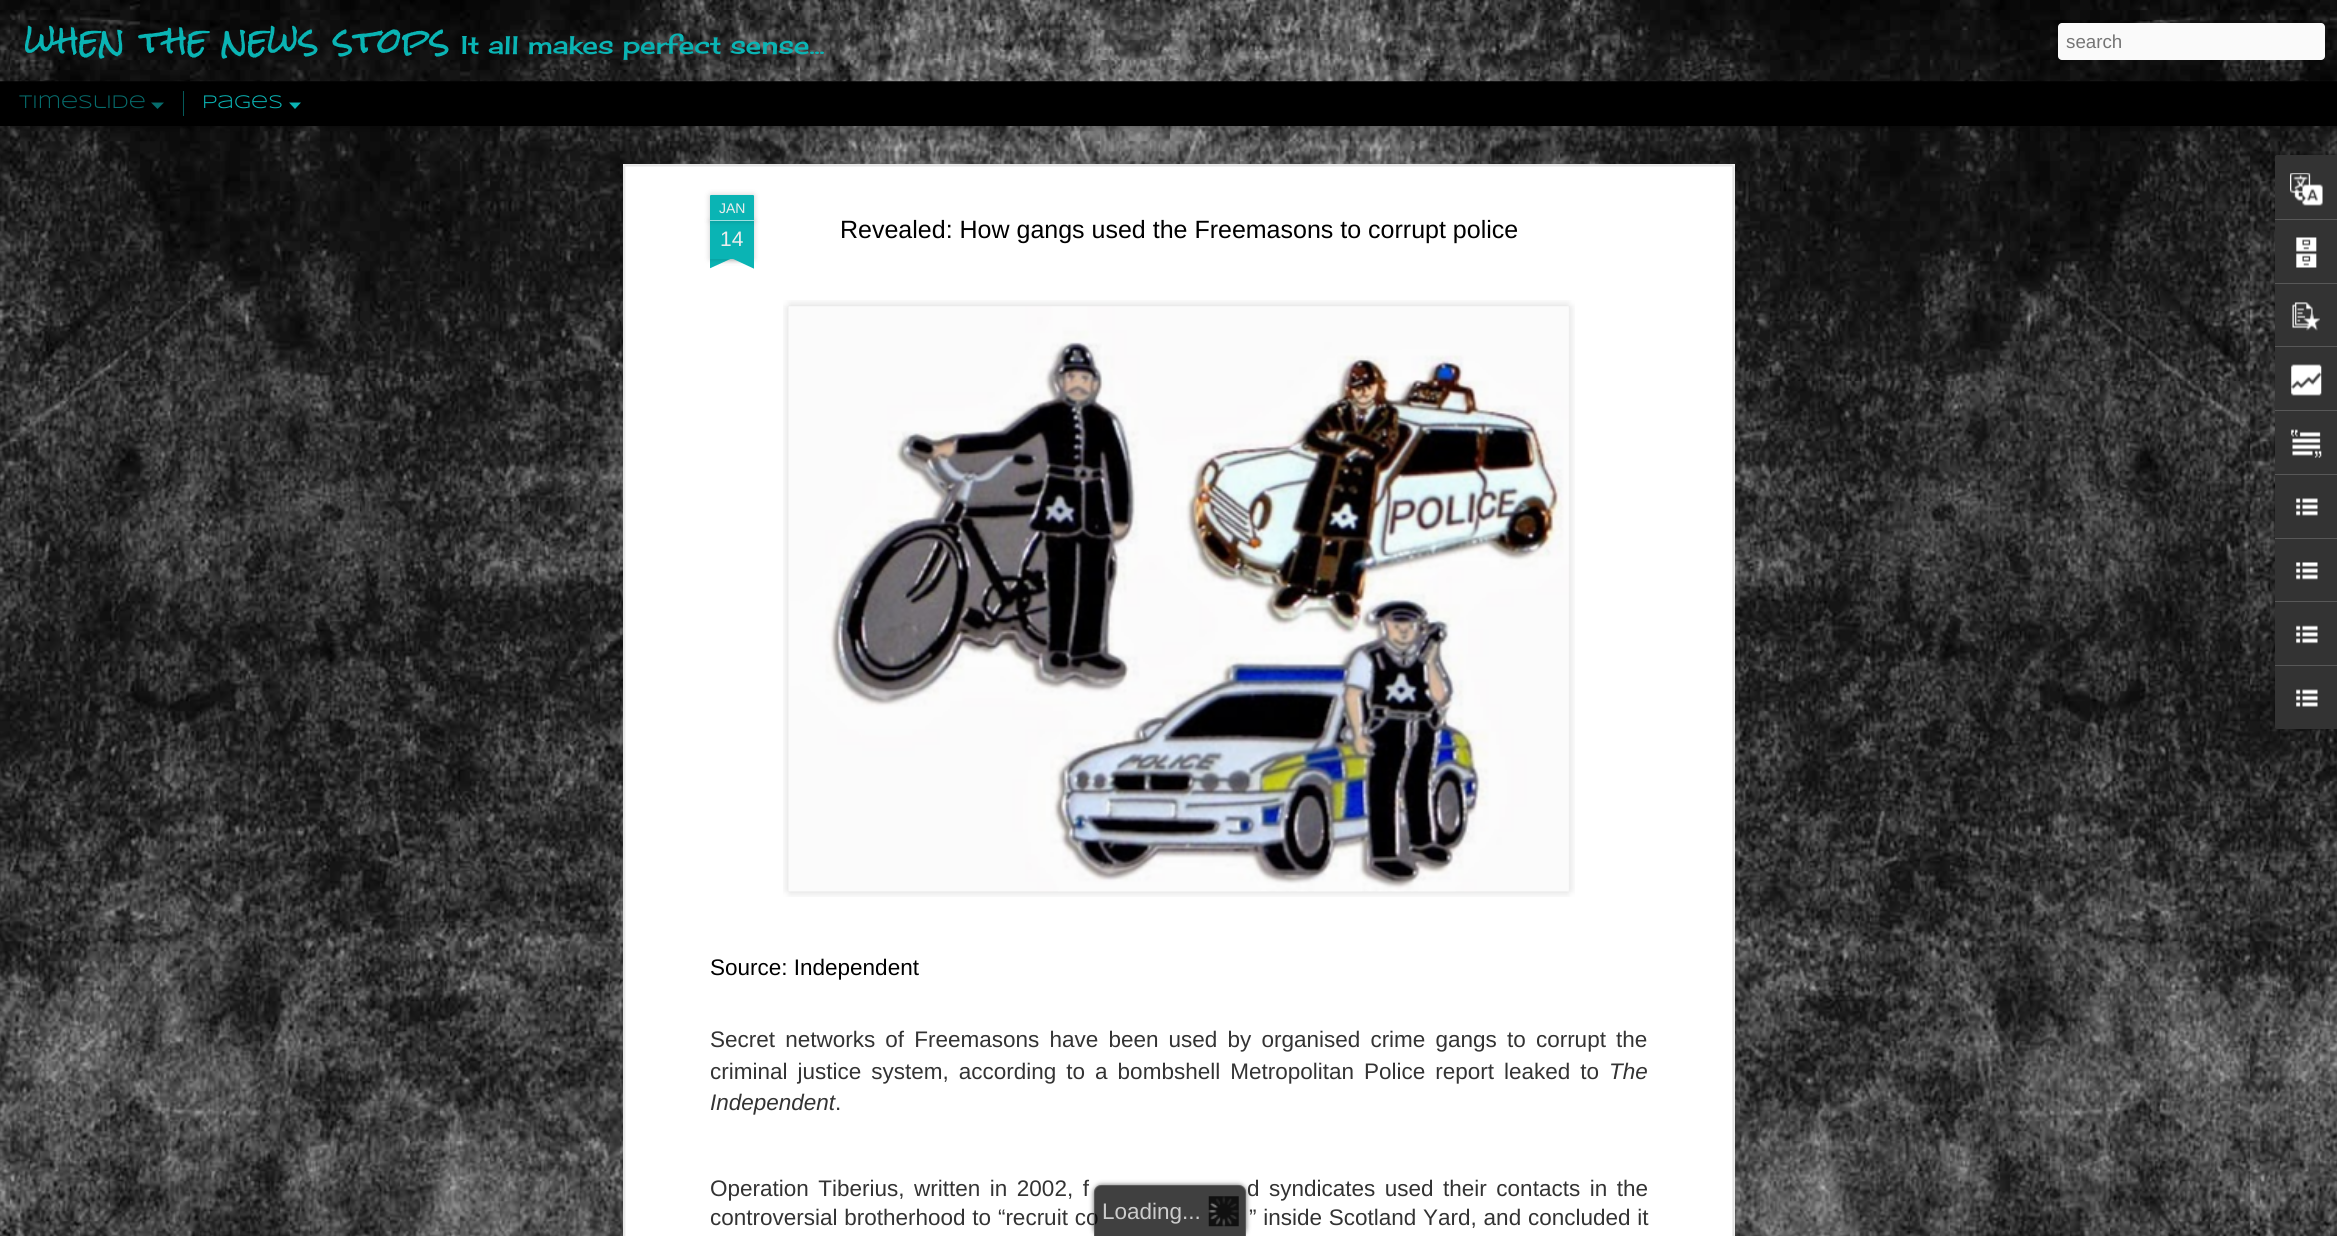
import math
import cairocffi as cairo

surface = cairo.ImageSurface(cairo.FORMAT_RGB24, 2337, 1236)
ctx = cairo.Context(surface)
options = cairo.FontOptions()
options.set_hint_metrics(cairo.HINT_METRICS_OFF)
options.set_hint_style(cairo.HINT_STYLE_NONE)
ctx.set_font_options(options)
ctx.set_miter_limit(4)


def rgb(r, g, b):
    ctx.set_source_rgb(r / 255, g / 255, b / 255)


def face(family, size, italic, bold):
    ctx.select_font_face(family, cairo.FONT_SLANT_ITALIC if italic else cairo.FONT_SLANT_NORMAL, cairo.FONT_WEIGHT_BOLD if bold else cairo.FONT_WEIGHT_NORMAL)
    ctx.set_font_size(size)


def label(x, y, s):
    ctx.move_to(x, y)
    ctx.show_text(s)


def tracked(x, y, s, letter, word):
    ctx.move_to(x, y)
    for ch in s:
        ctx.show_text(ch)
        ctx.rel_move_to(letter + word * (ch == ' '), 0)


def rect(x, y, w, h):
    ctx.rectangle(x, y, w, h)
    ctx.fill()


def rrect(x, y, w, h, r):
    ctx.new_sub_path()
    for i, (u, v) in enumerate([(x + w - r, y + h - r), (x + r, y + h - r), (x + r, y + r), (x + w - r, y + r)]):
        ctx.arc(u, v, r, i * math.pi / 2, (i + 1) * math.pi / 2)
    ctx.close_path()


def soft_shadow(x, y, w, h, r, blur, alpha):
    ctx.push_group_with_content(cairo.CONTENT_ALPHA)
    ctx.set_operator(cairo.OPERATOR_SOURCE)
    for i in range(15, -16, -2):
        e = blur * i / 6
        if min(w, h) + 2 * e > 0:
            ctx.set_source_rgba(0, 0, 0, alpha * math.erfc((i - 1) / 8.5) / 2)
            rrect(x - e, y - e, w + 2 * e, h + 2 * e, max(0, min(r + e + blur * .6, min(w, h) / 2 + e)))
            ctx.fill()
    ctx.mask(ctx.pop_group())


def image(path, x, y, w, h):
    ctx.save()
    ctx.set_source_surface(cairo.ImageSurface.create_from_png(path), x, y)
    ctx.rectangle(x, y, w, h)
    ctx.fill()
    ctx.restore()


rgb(0, 0, 0)
ctx.paint()
image('image1.png', 0, 126, 2337, 1110)
soft_shadow(0, 81, 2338, 44, 0, 5, 0.5)
image('image0.png', 0, 0, 2337, 82)
ctx.save()
ctx.rectangle(25, 0, 2019, 81)
ctx.clip()
face('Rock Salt', 35, 0, 0)
rgb(10, 180, 180)
label(25, 54, 'when the news stops')
ctx.restore()
face('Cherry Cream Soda', 25, 0, 0)
rgb(10, 180, 180)
label(461, 54, 'It all makes perfect sense...')
rgb(250, 250, 250)
rrect(2058, 23, 267, 37, 4)
ctx.fill()
face('Liberation Sans', 18.75, 0, 0)
rgb(117, 117, 117)
label(2066, 48, 'search')
face('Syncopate', 18.75, 0, 0)
rgb(6, 108, 108)
label(19, 108, 'Timeslide')
ctx.new_path()
ctx.move_to(151, 102.5)
ctx.line_to(164, 102.5)
ctx.line_to(157.5, 109)
ctx.close_path()
ctx.fill()
rgb(5, 90, 90)
rect(183, 91, 1, 25)
rgb(10, 180, 180)
label(202, 108, 'Pages')
ctx.new_path()
ctx.move_to(289, 102.5)
ctx.line_to(301, 102.5)
ctx.line_to(295, 109)
ctx.close_path()
ctx.fill()
rgb(255, 255, 255)
rect(623, 164, 1112, 1072)
image('image2.png', 623, 164, 1113, 1072)
rgb(0, 0, 0)
soft_shadow(710, 221, 44, 38, 0, 3, 0.2)
rgb(10, 180, 180)
rect(710, 221, 44, 38)
rgb(0, 0, 0)
soft_shadow(710, 195, 44, 26, 1, 3, 0.2)
rgb(10, 180, 180)
ctx.new_path()
ctx.move_to(711, 195)
ctx.line_to(753, 195)
ctx.curve_to(753.5, 195, 754, 195.5, 754, 196)
ctx.line_to(754, 221)
ctx.line_to(710, 221)
ctx.line_to(710, 196)
ctx.curve_to(710, 195.5, 710.5, 195, 711, 195)
ctx.close_path()
ctx.fill()
rgb(157, 225, 225)
rect(710, 220, 44, 1)
face('Liberation Sans', 14, 0, 0)
rgb(238, 238, 238)
label(719, 213, 'JAN')
face('Liberation Sans', 21, 0, 0)
label(720, 246, '14')
ctx.save()
ctx.rectangle(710, 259, 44, 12)
ctx.clip()
rgb(0, 0, 0)
soft_shadow(699, 246, 62, 13, 0, 3, 0.2)
ctx.restore()
ctx.save()
ctx.rectangle(710, 259, 44, 12)
ctx.clip()
rgb(10, 180, 180)
ctx.new_path()
ctx.move_to(699, 260)
ctx.line_to(756, 234)
ctx.line_to(761, 245)
ctx.line_to(704, 271)
ctx.close_path()
ctx.fill()
ctx.restore()
ctx.save()
ctx.rectangle(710, 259, 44, 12)
ctx.clip()
rgb(0, 0, 0)
soft_shadow(703, 246, 62, 13, 0, 3, 0.2)
ctx.restore()
ctx.save()
ctx.rectangle(710, 259, 44, 12)
ctx.clip()
rgb(10, 180, 180)
ctx.new_path()
ctx.move_to(708, 234)
ctx.line_to(765, 260)
ctx.line_to(759, 271)
ctx.line_to(703, 245)
ctx.close_path()
ctx.fill()
ctx.restore()
face('Liberation Sans', 25, 0, 0)
rgb(0, 0, 0)
label(840, 238, 'Revealed: How gangs used the Freemasons to corrupt police')
image('image3.png', 783, 300, 792, 597)
image('image4.png', 788, 307, 782, 585)
face('Liberation Sans', 22.5, 0, 0)
label(710, 975, 'Source: Independent')
rgb(51, 51, 51)
tracked(710, 1047, 'Secret networks of Freemasons have been used by organised crime gangs to corrupt the', 0, 3.9)
tracked(710, 1079, 'criminal justice system, according to a bombshell Metropolitan Police report leaked to', 0, 3.75)
face('Liberation Sans', 22.5, 1, 0)
label(1609, 1079, 'The')
label(710, 1110, 'Independent')
face('Liberation Sans', 22.5, 0, 0)
label(835, 1110, '.')
tracked(710, 1196, 'Operation Tiberius, written in 2002, f', 0, 3.25)
tracked(1247, 1196, 'd syndicates used their contacts in the', 0, 3.25)
tracked(710, 1225, 'controversial brotherhood to “recruit co', 0, 0.5)
tracked(1249, 1225, '” inside Scotland Yard, and concluded it', 0, 0.5)
rgb(0, 0, 0)
soft_shadow(2275, 156, 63, 574, 2.5, 2, 0.3)
rgb(51, 51, 51)
ctx.new_path()
ctx.move_to(2277.5, 155)
ctx.line_to(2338, 155)
ctx.line_to(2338, 729)
ctx.line_to(2277.5, 729)
ctx.curve_to(2276, 729, 2275, 728, 2275, 726.5)
ctx.line_to(2275, 157.5)
ctx.curve_to(2275, 156, 2276, 155, 2277.5, 155)
ctx.close_path()
ctx.fill()
ctx.new_path()
ctx.move_to(2277.5, 155)
ctx.line_to(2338, 155)
ctx.line_to(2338, 219)
ctx.line_to(2275, 219)
ctx.line_to(2275, 157.5)
ctx.curve_to(2275, 156, 2276, 155, 2277.5, 155)
ctx.close_path()
ctx.fill()
image('image5.png', 2290, 173, 33, 33)
rgb(88, 88, 88)
rect(2275, 219, 62, 1)
image('image6.png', 2296, 237, 21, 31)
rect(2275, 283, 62, 1)
image('image7.png', 2292, 302, 28, 29)
rect(2275, 346, 62, 1)
image('image8.png', 2291, 364, 31, 32)
rect(2275, 410, 62, 1)
image('image9.png', 2291, 429, 31, 29)
rect(2275, 474, 62, 1)
image('image10.png', 2296, 498, 22, 18)
rect(2275, 538, 62, 1)
image('image11.png', 2296, 562, 22, 18)
rect(2275, 601, 62, 1)
image('image12.png', 2296, 625, 22, 19)
rgb(51, 51, 51)
ctx.new_path()
ctx.move_to(2275, 665)
ctx.line_to(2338, 665)
ctx.line_to(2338, 729)
ctx.line_to(2277.5, 729)
ctx.curve_to(2276, 729, 2275, 728, 2275, 726.5)
ctx.close_path()
ctx.fill()
rgb(88, 88, 88)
rect(2275, 665, 62, 1)
image('image13.png', 2296, 689, 22, 18)
ctx.save()
ctx.set_fill_rule(cairo.FILL_RULE_EVEN_ODD)
ctx.new_path()
ctx.move_to(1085, 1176)
ctx.line_to(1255, 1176)
ctx.line_to(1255, 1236)
ctx.line_to(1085, 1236)
ctx.close_path()
ctx.move_to(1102, 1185)
ctx.line_to(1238, 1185)
ctx.curve_to(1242.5, 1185, 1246, 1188.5, 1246, 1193)
ctx.line_to(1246, 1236)
ctx.line_to(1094, 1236)
ctx.line_to(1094, 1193)
ctx.curve_to(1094, 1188.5, 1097.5, 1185, 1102, 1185)
ctx.close_path()
ctx.clip()
rgb(51, 51, 51)
soft_shadow(1094, 1185, 152, 51, 8, 2.5, 0.75)
ctx.restore()
ctx.set_source_rgba(0, 0, 0, 0.75)
ctx.new_path()
ctx.move_to(1102, 1185)
ctx.line_to(1238, 1185)
ctx.curve_to(1242.5, 1185, 1246, 1188.5, 1246, 1193)
ctx.line_to(1246, 1236)
ctx.line_to(1094, 1236)
ctx.line_to(1094, 1193)
ctx.curve_to(1094, 1188.5, 1097.5, 1185, 1102, 1185)
ctx.close_path()
ctx.fill()
ctx.set_source_rgba(0.4, 0.4, 0.4, 0.75)
ctx.set_fill_rule(cairo.FILL_RULE_EVEN_ODD)
ctx.new_path()
ctx.move_to(1101, 1185)
ctx.line_to(1239, 1185)
ctx.curve_to(1243, 1185, 1246, 1188, 1246, 1192)
ctx.line_to(1246, 1236)
ctx.line_to(1094, 1236)
ctx.line_to(1094, 1192)
ctx.curve_to(1094, 1188, 1097, 1185, 1101, 1185)
ctx.close_path()
ctx.move_to(1101, 1186)
ctx.line_to(1239, 1186)
ctx.curve_to(1242, 1186, 1245, 1189, 1245, 1192)
ctx.line_to(1245, 1236)
ctx.line_to(1095, 1236)
ctx.line_to(1095, 1192)
ctx.curve_to(1095, 1189, 1098, 1186, 1101, 1186)
ctx.close_path()
ctx.fill()
image('image14.png', 1208, 1196, 31, 31)
rgb(204, 204, 204)
label(1102, 1219, 'Loading')
label(1182, 1219, '...')
surface.write_to_png('render.png')
